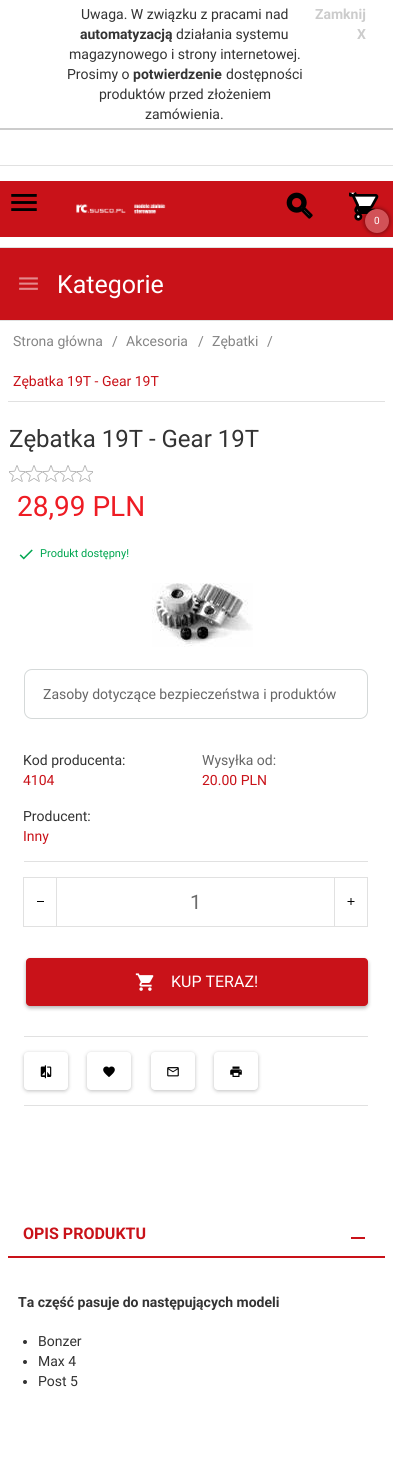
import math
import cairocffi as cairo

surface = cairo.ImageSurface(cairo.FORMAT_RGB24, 393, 1463)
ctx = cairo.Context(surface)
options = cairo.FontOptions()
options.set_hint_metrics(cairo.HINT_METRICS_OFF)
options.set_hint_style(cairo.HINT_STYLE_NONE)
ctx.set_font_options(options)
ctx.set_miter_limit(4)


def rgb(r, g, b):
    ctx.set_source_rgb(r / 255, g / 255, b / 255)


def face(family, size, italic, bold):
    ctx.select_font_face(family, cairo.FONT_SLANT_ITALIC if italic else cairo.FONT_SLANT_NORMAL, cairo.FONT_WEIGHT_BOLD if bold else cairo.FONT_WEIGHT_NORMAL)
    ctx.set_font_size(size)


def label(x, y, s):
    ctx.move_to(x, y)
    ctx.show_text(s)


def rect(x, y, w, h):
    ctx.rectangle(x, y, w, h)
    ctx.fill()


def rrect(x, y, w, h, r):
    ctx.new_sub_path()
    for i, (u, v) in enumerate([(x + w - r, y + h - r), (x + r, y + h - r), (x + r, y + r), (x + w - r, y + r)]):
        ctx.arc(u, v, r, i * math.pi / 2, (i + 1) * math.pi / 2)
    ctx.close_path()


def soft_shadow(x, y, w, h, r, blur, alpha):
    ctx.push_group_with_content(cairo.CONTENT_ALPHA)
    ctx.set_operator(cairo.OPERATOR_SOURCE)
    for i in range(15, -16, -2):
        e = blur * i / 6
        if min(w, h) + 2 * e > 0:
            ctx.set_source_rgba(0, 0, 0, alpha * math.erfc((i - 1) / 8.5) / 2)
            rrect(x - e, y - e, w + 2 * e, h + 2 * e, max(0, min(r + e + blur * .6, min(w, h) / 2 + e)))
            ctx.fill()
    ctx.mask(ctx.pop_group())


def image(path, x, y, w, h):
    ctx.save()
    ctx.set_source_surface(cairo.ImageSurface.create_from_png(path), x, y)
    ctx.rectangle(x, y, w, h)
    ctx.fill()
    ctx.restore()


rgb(255, 255, 255)
ctx.paint()
rgb(204, 204, 204)
rect(0, 128, 393, 2)
face('Roboto', 14, 0, 0)
rgb(51, 51, 51)
label(81, 19, 'Uwaga. W związku z pracami nad')
face('Roboto', 14, 0, 1)
label(80, 39, 'automatyzacją')
face('Roboto', 14, 0, 0)
label(176, 39, 'działania systemu')
label(69, 59, 'magazynowego i strony internetowej.')
label(67, 79, 'Prosimy o')
face('Roboto', 14, 0, 1)
label(133, 79, 'potwierdzenie')
face('Roboto', 14, 0, 0)
label(226, 79, 'dostępności')
label(99, 99, 'produktów przed złożeniem')
label(145, 119, 'zamówienia.')
face('Roboto', 14, 0, 1)
rgb(204, 204, 204)
label(315, 19, 'Zamknij')
label(357, 39, 'X')
rgb(225, 225, 225)
rect(0, 165, 393, 1)
rgb(201, 18, 25)
rect(0, 181, 393, 56)
image('image0.png', 11, 194, 26, 17)
image('image1.png', 76, 203, 90, 11)
image('image2.png', 286, 192, 27, 27)
image('image3.png', 349, 192, 30, 29)
rgb(0, 0, 0)
soft_shadow(364, 208, 26, 26, 13, 2, 0.36)
rgb(210, 82, 87)
ctx.arc(377, 221, 12, 0, 2 * math.pi)
ctx.fill()
face('Roboto', 10, 0, 0)
rgb(255, 255, 255)
label(374, 224, '0')
rgb(225, 225, 225)
rect(0, 247, 393, 1)
rect(0, 320, 393, 1)
rgb(201, 18, 25)
rect(0, 248, 393, 72)
image('image4.png', 19, 277, 19, 13)
face('Roboto', 25, 0, 0)
rgb(255, 255, 255)
label(57, 293, 'Kategorie')
rgb(225, 225, 225)
rect(8, 401, 377, 1)
face('Roboto', 14, 0, 0)
rgb(133, 133, 133)
label(13, 346, 'Strona główna')
label(112, 346, '/')
label(126, 346, 'Akcesoria')
label(198, 346, '/')
label(212, 346, 'Zębatki')
label(267, 346, '/')
rgb(201, 18, 25)
label(13, 386, 'Zębatka 19T - Gear 19T')
face('Roboto', 24, 0, 0)
rgb(51, 51, 51)
label(9, 447, 'Zębatka 19T - Gear 19T')
image('image5.png', 9, 465, 84, 17)
face('Roboto', 28, 0, 0)
rgb(238, 28, 36)
label(17, 516, '28,99 PLN')
image('image6.png', 19, 549, 14, 11)
face('Roboto', 11, 0, 0)
rgb(0, 166, 80)
label(40, 557, 'Produkt dostępny!')
image('image7.png', 152, 583, 101, 64)
rrect(24.5, 669.5, 343, 49, 7.5)
rgb(213, 217, 217)
ctx.set_line_width(1)
ctx.stroke()
face('Roboto', 14, 0, 0)
rgb(102, 102, 102)
label(43, 699, 'Zasoby dotyczące bezpieczeństwa i produktów')
rgb(225, 225, 225)
rect(24, 861, 344, 1)
rgb(51, 51, 51)
label(23, 765, 'Kod producenta:')
rgb(201, 18, 25)
label(23, 785, '4104')
rgb(102, 102, 102)
label(202, 765, 'Wysyłka od:')
rgb(201, 18, 25)
label(202, 785, '20.00 PLN')
rgb(51, 51, 51)
label(23, 821, 'Producent:')
rgb(201, 18, 25)
label(23, 841, 'Inny')
rgb(225, 225, 225)
rect(24, 1036, 344, 1)
ctx.rectangle(23.5, 877.5, 344, 49)
ctx.stroke()
rect(56, 878, 1, 48)
rgb(1, 1, 1)
rect(37, 901, 7, 1)
face('Roboto', 20, 0, 0)
rgb(108, 108, 108)
label(190, 909, '1')
rgb(225, 225, 225)
rect(334, 878, 1, 48)
image('image8.png', 347, 898, 8, 7)
rgb(0, 0, 0)
soft_shadow(26, 960, 342, 48, 4, 2, 0.3)
rgb(201, 18, 25)
rrect(26, 958, 342, 48, 4)
ctx.fill()
image('image9.png', 135, 973, 19, 18)
face('Roboto', 16, 0, 0)
rgb(255, 255, 255)
label(171, 987, 'KUP TERAZ!')
rgb(225, 225, 225)
rect(24, 1105, 344, 1)
rgb(0, 0, 0)
soft_shadow(24, 1053, 44, 38, 4, 2, 0.25)
rgb(255, 255, 255)
rrect(24, 1052, 44, 38, 4)
ctx.fill()
image('image10.png', 40, 1065, 12, 14)
rgb(0, 0, 0)
soft_shadow(87, 1053, 44, 38, 4, 2, 0.25)
rgb(255, 255, 255)
rrect(87, 1052, 44, 38, 4)
ctx.fill()
image('image11.png', 103, 1066, 12, 11)
rgb(0, 0, 0)
soft_shadow(151, 1053, 44, 38, 4, 2, 0.25)
rgb(255, 255, 255)
rrect(151, 1052, 44, 38, 4)
ctx.fill()
image('image12.png', 167, 1067, 12, 10)
rgb(0, 0, 0)
soft_shadow(214, 1053, 44, 38, 4, 2, 0.25)
rgb(255, 255, 255)
rrect(214, 1052, 44, 38, 4)
ctx.fill()
image('image13.png', 230, 1066, 12, 11)
rgb(201, 18, 25)
rect(8, 1256, 377, 2)
face('Roboto', 16, 0, 1)
label(23, 1239, 'OPIS PRODUKTU')
rect(351, 1237, 14, 2)
face('Roboto', 14, 0, 1)
rgb(51, 51, 51)
label(18, 1307, 'Ta część pasuje do następujących modeli')
ctx.new_path()
ctx.arc(25, 1342, 2, 0, 2 * math.pi)
ctx.fill()
face('Roboto', 14, 0, 0)
label(38, 1346, 'Bonzer')
ctx.new_path()
ctx.arc(25, 1362, 2, 0, 2 * math.pi)
ctx.fill()
label(38, 1366, 'Max 4')
ctx.new_path()
ctx.arc(25, 1382, 2, 0, 2 * math.pi)
ctx.fill()
label(38, 1386, 'Post 5')
surface.write_to_png('render.png')
